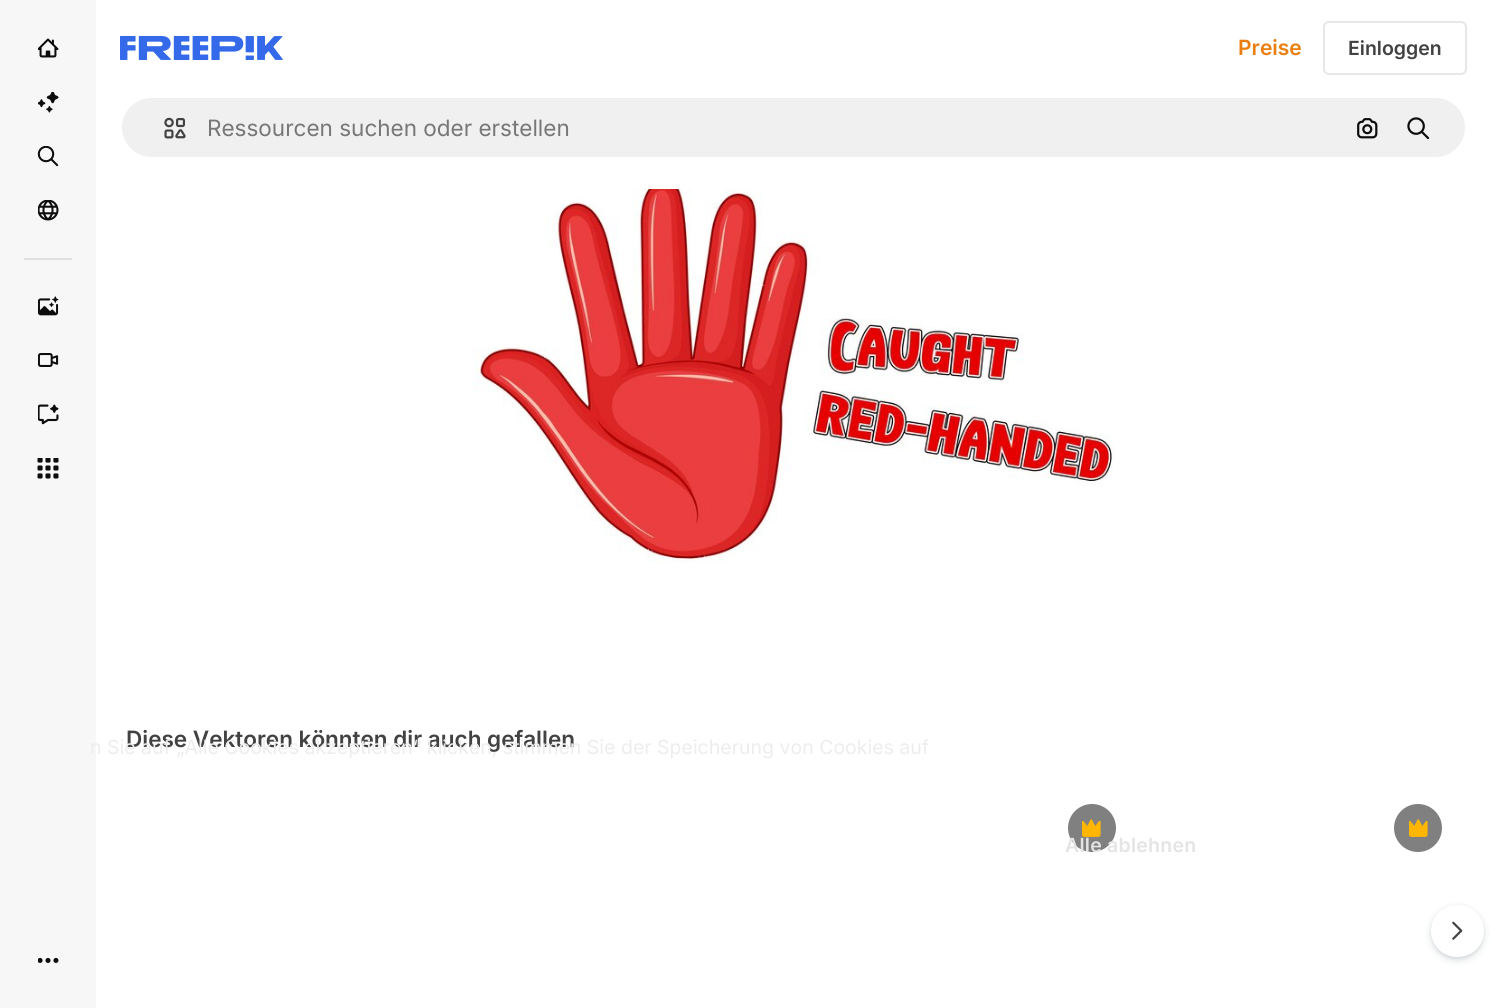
import math
import cairocffi as cairo

surface = cairo.ImageSurface(cairo.FORMAT_RGB24, 1490, 1008)
ctx = cairo.Context(surface)
options = cairo.FontOptions()
options.set_hint_metrics(cairo.HINT_METRICS_OFF)
options.set_hint_style(cairo.HINT_STYLE_NONE)
ctx.set_font_options(options)
ctx.set_miter_limit(4)


def rgb(r, g, b):
    ctx.set_source_rgb(r / 255, g / 255, b / 255)


def face(family, size, italic, bold):
    ctx.select_font_face(family, cairo.FONT_SLANT_ITALIC if italic else cairo.FONT_SLANT_NORMAL, cairo.FONT_WEIGHT_BOLD if bold else cairo.FONT_WEIGHT_NORMAL)
    ctx.set_font_size(size)


def label(x, y, s):
    ctx.move_to(x, y)
    ctx.show_text(s)


def tracked(x, y, s, letter, word):
    ctx.move_to(x, y)
    for ch in s:
        ctx.show_text(ch)
        ctx.rel_move_to(letter + word * (ch == ' '), 0)


def rect(x, y, w, h):
    ctx.rectangle(x, y, w, h)
    ctx.fill()


def rrect(x, y, w, h, r):
    ctx.new_sub_path()
    for i, (u, v) in enumerate([(x + w - r, y + h - r), (x + r, y + h - r), (x + r, y + r), (x + w - r, y + r)]):
        ctx.arc(u, v, r, i * math.pi / 2, (i + 1) * math.pi / 2)
    ctx.close_path()


def soft_shadow(x, y, w, h, r, blur, alpha):
    ctx.push_group_with_content(cairo.CONTENT_ALPHA)
    ctx.set_operator(cairo.OPERATOR_SOURCE)
    for i in range(15, -16, -2):
        e = blur * i / 6
        if min(w, h) + 2 * e > 0:
            ctx.set_source_rgba(0, 0, 0, alpha * math.erfc((i - 1) / 8.5) / 2)
            rrect(x - e, y - e, w + 2 * e, h + 2 * e, max(0, min(r + e + blur * .6, min(w, h) / 2 + e)))
            ctx.fill()
    ctx.mask(ctx.pop_group())


def image(path, x, y, w, h):
    ctx.save()
    ctx.set_source_surface(cairo.ImageSurface.create_from_png(path), x, y)
    ctx.rectangle(x, y, w, h)
    ctx.fill()
    ctx.restore()


rgb(255, 255, 255)
ctx.paint()
rgb(247, 247, 247)
rect(0, 0, 96, 1008)
image('image0.png', 38, 38, 21, 20)
image('image1.png', 38, 92, 21, 21)
image('image2.png', 37, 146, 22, 21)
image('image3.png', 38, 200, 21, 21)
rgb(224, 224, 224)
rect(24, 258, 48, 2)
image('image4.png', 38, 296, 21, 20)
image('image5.png', 38, 353, 21, 14)
image('image6.png', 38, 404, 21, 21)
image('image7.png', 37, 458, 22, 21)
image('image8.png', 38, 957, 21, 6)
image('image9.png', 120, 36, 163, 24)
face('Inter SemiBold', 21, 0, 0)
rgb(234, 126, 17)
label(1238, 55, 'Preise')
rrect(1324, 22, 142, 52, 5)
rgb(231, 231, 231)
ctx.stroke()
face('Inter SemiBold', 19.5, 0, 0)
rgb(66, 66, 66)
label(1348, 55, 'Einloggen')
rgb(240, 240, 240)
rrect(121, 97, 1345, 61, 30.5)
ctx.fill_preserve()
rgb(255, 255, 255)
ctx.stroke()
image('image10.png', 164, 117, 22, 22)
face('Inter', 22.5, 0, 0)
rgb(119, 119, 119)
label(207, 136, 'Ressourcen suchen oder erstellen')
image('image11.png', 1357, 118, 21, 21)
image('image12.png', 1407, 117, 23, 23)
image('image13.png', 473, 189, 641, 374)
face('Inter SemiBold', 22.5, 0, 0)
rgb(66, 66, 66)
label(126, 747, 'Diese Vektoren könnten dir auch gefallen')
rgb(128, 128, 128)
ctx.new_path()
ctx.arc(1092, 828, 24, 0, 2 * math.pi)
ctx.fill()
image('image14.png', 1082, 819, 19, 18)
ctx.arc(1418, 828, 24, 0, 2 * math.pi)
ctx.fill()
image('image14.png', 1409, 819, 19, 18)
rgb(55, 73, 87)
soft_shadow(1431, 908, 53, 52, 26, 4, 0.15)
soft_shadow(1431, 906, 53, 53, 26.5, 1.5, 0.1)
rgb(255, 255, 255)
rrect(1431, 905, 53, 52, 26)
ctx.fill()
image('image15.png', 1452, 921, 11, 19)
face('Inter', 19.5, 0, 0)
rgb(237, 237, 237)
label(90, 754, 'n Sie auf „Alle Cookies akzeptieren“ klicken, stimmen Sie der Speicherung von Cookies auf')
face('Inter SemiBold', 19.5, 0, 0)
rgb(228, 228, 228)
tracked(1065, 852, 'Alle ablehnen', 0.25, 0)
surface.write_to_png('render.png')
